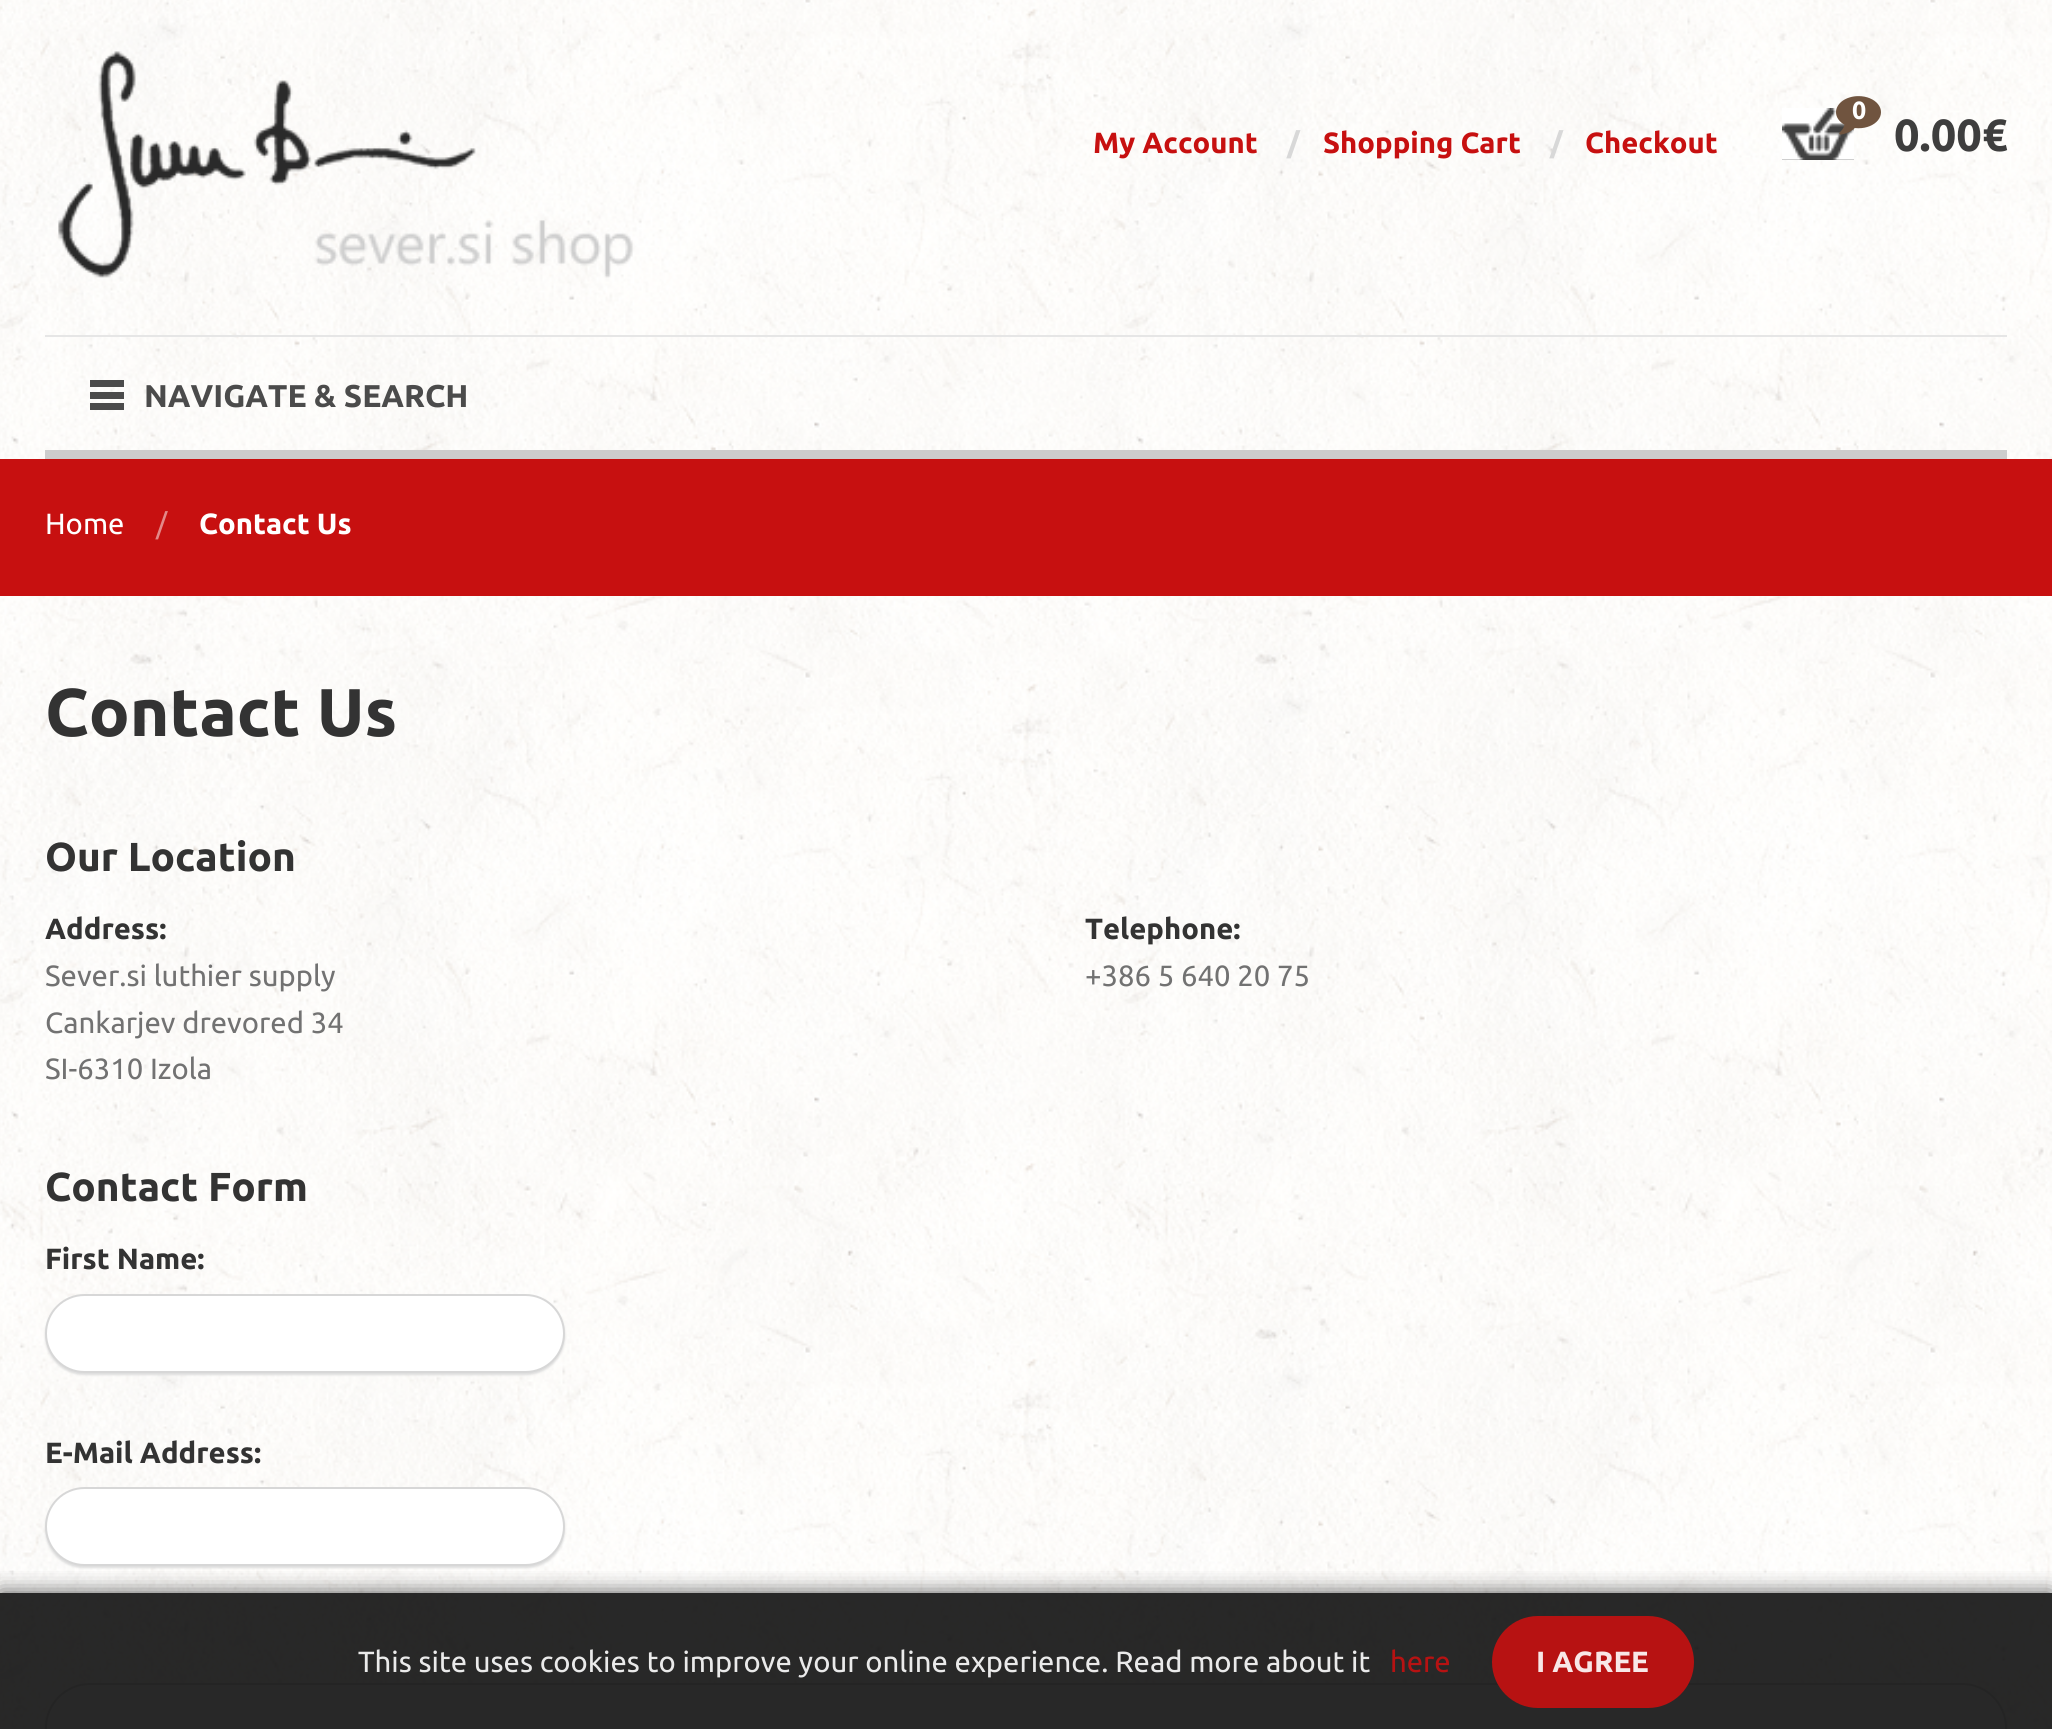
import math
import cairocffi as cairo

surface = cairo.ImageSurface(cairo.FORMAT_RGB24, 2052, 1729)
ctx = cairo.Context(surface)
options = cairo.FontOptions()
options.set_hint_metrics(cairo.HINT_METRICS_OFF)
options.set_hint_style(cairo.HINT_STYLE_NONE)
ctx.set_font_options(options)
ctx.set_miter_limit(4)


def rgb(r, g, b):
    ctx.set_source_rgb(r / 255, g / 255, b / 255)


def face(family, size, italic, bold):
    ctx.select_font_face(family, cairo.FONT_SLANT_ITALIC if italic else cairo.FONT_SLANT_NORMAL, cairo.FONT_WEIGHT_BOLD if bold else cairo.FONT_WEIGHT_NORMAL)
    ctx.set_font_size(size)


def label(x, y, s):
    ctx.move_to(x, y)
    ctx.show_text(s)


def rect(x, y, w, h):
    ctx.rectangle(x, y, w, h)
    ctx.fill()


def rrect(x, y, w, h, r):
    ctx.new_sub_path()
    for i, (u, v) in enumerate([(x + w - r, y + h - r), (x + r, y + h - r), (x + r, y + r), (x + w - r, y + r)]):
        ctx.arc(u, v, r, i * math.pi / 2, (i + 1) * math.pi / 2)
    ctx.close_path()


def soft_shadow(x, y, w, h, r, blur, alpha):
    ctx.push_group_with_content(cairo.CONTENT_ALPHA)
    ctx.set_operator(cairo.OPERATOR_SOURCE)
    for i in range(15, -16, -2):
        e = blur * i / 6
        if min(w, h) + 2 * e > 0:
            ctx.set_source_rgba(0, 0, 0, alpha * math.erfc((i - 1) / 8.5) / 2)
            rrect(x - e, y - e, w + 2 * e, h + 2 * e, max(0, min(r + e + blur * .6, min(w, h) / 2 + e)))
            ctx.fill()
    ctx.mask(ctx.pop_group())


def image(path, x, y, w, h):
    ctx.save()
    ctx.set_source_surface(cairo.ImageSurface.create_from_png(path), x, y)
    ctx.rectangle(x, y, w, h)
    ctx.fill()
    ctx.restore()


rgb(255, 255, 255)
ctx.paint()
image('image0.png', 0, 0, 2052, 1729)
image('image1.png', 58, 51, 575, 227)
face('Ubuntu', 29.25, 0, 1)
rgb(199, 16, 16)
label(1093, 153, 'My Account')
rgb(216, 216, 216)
label(1287, 153, '/')
rgb(199, 16, 16)
label(1323, 153, 'Shopping Cart')
rgb(216, 216, 216)
label(1550, 153, '/')
rgb(199, 16, 16)
label(1585, 153, 'Checkout')
rgb(62, 62, 62)
rect(1782, 108, 72, 52)
image('image2.png', 1782, 108, 72, 52)
image('image3.png', 1836, 96, 45, 39)
face('Ubuntu', 25, 0, 1)
rgb(255, 255, 255)
label(1852, 119, '0')
face('Ubuntu', 45, 0, 1)
rgb(62, 62, 62)
label(1894, 151, '0.00€')
rgb(230, 230, 230)
rect(45, 335, 1962, 2)
rgb(205, 205, 205)
rect(45, 450, 1962, 9)
rgb(75, 75, 75)
rect(90, 380, 34, 7)
rect(90, 392, 34, 7)
rect(90, 403, 34, 7)
face('Ubuntu', 31.5, 0, 1)
label(144, 407, 'NAVIGATE & SEARCH')
rgb(199, 16, 16)
rect(0, 459, 2052, 137)
face('Ubuntu', 29.25, 0, 0)
rgb(255, 255, 255)
label(45, 534, 'Home')
rgb(227, 136, 136)
label(156, 534, '/')
face('Ubuntu', 29.25, 0, 1)
rgb(255, 255, 255)
label(199, 534, 'Contact Us')
face('Ubuntu', 67.5, 0, 1)
rgb(51, 51, 51)
label(45, 736, 'Contact Us')
face('Ubuntu', 40.5, 0, 1)
label(45, 871, 'Our Location')
face('Ubuntu', 29.25, 0, 1)
label(45, 939, 'Address:')
face('Ubuntu', 29.25, 0, 0)
rgb(114, 114, 114)
label(45, 986, 'Sever.si luthier supply')
label(45, 1033, 'Cankarjev drevored 34')
label(45, 1079, 'SI-6310 Izola')
face('Ubuntu', 29.25, 0, 1)
rgb(51, 51, 51)
label(1085, 939, 'Telephone:')
face('Ubuntu', 29.25, 0, 0)
rgb(114, 114, 114)
label(1085, 986, '+386 5 640 20 75')
face('Ubuntu', 40.5, 0, 1)
rgb(51, 51, 51)
label(45, 1201, 'Contact Form')
face('Ubuntu', 29.25, 0, 1)
label(45, 1269, 'First Name:')
rgb(221, 221, 221)
soft_shadow(45, 1296, 520, 79, 39.5, 1, 1)
rgb(255, 255, 255)
rrect(46, 1295, 518, 77, 38.5)
ctx.fill_preserve()
rgb(215, 215, 215)
ctx.stroke()
rgb(51, 51, 51)
label(45, 1463, 'E-Mail Address:')
rgb(221, 221, 221)
soft_shadow(45, 1490, 520, 78, 39, 1, 1)
rgb(255, 255, 255)
rrect(46, 1488, 518, 77, 38.5)
ctx.fill_preserve()
rgb(215, 215, 215)
ctx.stroke()
rgb(221, 221, 221)
soft_shadow(45, 1685, 1962, 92, 45, 1, 1)
rgb(255, 255, 255)
rrect(46, 1684, 1960, 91, 44)
ctx.fill_preserve()
rgb(215, 215, 215)
ctx.stroke()
ctx.save()
ctx.rectangle(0, 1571, 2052, 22)
ctx.clip()
rgb(68, 68, 68)
soft_shadow(0, 1593, 2052, 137, 0, 11, 0.9)
ctx.restore()
ctx.set_source_rgba(0.067, 0.067, 0.067, 0.9)
rect(0, 1593, 2052, 136)
face('Ubuntu', 29.25, 0, 0)
rgb(234, 234, 234)
label(358, 1672, 'This site uses cookies to improve your online experience. Read more about it')
rgb(183, 18, 18)
label(1390, 1672, 'here')
ctx.set_source_rgba(0.78, 0.063, 0.063, 0.9)
rrect(1492, 1616, 202, 92, 46)
ctx.fill()
face('Ubuntu', 29.25, 0, 1)
rgb(248, 231, 231)
label(1536, 1672, 'I AGREE')
surface.write_to_png('render.png')
